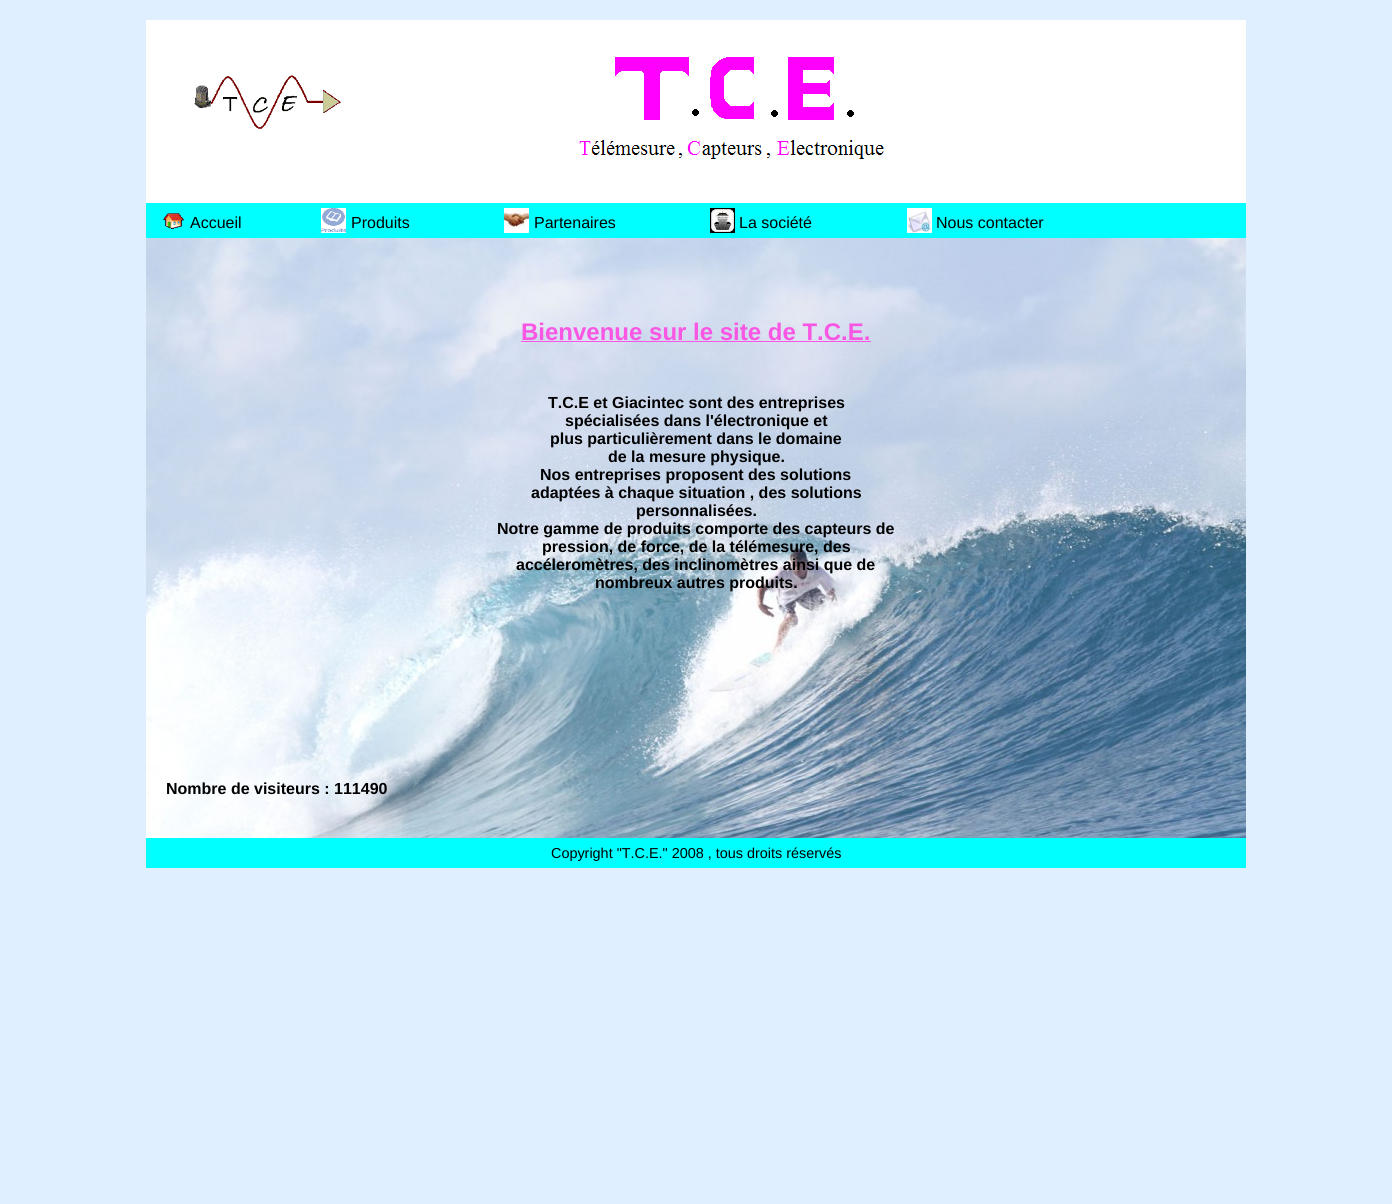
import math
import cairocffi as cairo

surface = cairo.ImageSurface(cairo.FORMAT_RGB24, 1392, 1204)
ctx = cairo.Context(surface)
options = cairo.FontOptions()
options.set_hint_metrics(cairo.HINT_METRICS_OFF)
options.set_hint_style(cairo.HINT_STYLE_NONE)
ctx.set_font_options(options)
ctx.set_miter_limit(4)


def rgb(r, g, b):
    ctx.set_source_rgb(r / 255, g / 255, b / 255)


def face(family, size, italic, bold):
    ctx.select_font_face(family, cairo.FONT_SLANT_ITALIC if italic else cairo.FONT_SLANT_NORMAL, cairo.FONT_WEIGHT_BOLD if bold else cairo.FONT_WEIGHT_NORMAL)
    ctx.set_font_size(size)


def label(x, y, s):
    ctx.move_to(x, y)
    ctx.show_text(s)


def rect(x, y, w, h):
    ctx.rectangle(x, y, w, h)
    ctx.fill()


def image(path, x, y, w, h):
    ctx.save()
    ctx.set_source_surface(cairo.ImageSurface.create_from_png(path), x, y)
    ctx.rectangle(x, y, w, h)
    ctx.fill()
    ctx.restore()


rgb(224, 239, 255)
ctx.paint()
image('image0.png', 146, 20, 1100, 183)
image('image1.png', 146, 203, 1100, 35)
image('image2.png', 163, 213, 21, 16)
face('Liberation Sans', 16, 0, 0)
rgb(0, 0, 0)
label(190, 228, 'Accueil')
image('image3.png', 321, 208, 25, 25)
label(351, 228, 'Produits')
image('image4.png', 504, 208, 25, 25)
label(534, 228, 'Partenaires')
image('image5.png', 710, 208, 25, 25)
label(739, 228, 'La société')
image('image6.png', 907, 208, 25, 25)
label(936, 228, 'Nous contacter')
image('image7.png', 146, 238, 1100, 600)
face('Liberation Sans', 24, 0, 1)
rgb(248, 86, 227)
label(521, 340, 'Bienvenue sur le site de T.C.E.')
rect(521, 341, 350, 1)
face('Liberation Sans', 16, 0, 1)
rgb(0, 0, 0)
label(548, 408, 'T.C.E et Giacintec sont des entreprises')
label(565, 426, 'spécialisées dans l\'électronique et')
label(550, 444, 'plus particulièrement dans le domaine')
label(608, 462, 'de la mesure physique.')
label(540, 480, 'Nos entreprises proposent des solutions')
label(531, 498, 'adaptées à chaque situation , des solutions')
label(636, 516, 'personnalisées.')
label(497, 534, 'Notre gamme de produits comporte des capteurs de')
label(542, 552, 'pression, de force, de la télémesure, des')
label(516, 570, 'accéleromètres, des inclinomètres ainsi que de')
label(595, 588, 'nombreux autres produits.')
label(166, 794, 'Nombre de visiteurs : 111490')
rgb(0, 255, 255)
rect(146, 838, 1100, 30)
face('Liberation Sans', 14.4, 0, 0)
rgb(0, 0, 0)
label(551, 858, 'Copyright "T.C.E." 2008 , tous droits réservés')
surface.write_to_png('render.png')
